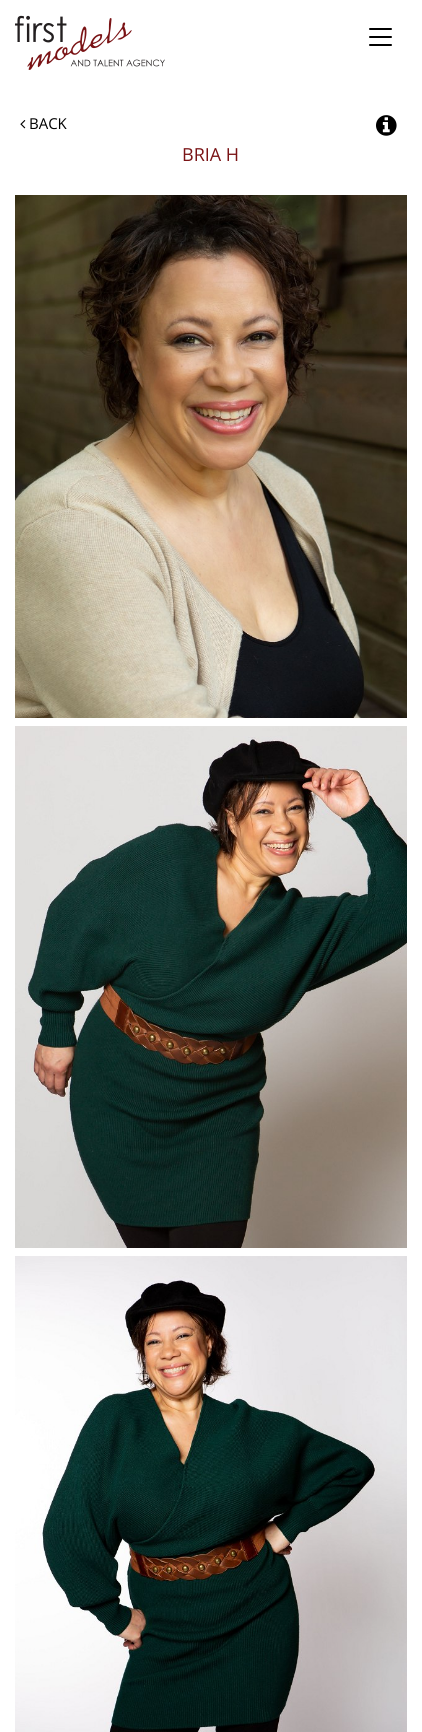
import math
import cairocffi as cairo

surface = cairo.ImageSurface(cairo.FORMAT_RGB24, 422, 1732)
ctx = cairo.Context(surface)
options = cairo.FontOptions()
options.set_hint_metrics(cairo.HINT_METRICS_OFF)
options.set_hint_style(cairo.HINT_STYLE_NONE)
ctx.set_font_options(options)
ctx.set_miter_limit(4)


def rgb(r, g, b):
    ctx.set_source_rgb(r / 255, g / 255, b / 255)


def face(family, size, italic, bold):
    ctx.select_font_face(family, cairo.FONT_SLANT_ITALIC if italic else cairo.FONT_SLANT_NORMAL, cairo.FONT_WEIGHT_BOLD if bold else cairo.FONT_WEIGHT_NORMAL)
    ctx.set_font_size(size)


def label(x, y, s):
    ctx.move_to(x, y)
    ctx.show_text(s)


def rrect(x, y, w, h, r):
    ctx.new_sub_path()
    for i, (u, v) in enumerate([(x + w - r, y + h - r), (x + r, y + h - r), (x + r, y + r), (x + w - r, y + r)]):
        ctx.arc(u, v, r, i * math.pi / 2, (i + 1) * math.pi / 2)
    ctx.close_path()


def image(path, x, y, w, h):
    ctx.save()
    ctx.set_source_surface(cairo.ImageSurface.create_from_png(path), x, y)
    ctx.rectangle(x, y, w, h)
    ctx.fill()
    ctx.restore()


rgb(255, 255, 255)
ctx.paint()
image('image0.png', 15, 15, 150, 55)
rgb(0, 0, 0)
rrect(369, 28, 23, 2, 1)
ctx.fill()
rrect(369, 36, 23, 2, 1)
ctx.fill()
rrect(369, 44, 23, 2, 1)
ctx.fill()
image('image1.png', 20, 120, 6, 9)
face('Open Sans', 15, 0, 0)
label(29, 129, 'BACK')
image('image2.png', 376, 115, 21, 21)
face('Open Sans', 18, 0, 0)
rgb(122, 19, 21)
label(182, 161, 'BRIA H')
image('image3.png', 15, 195, 392, 523)
image('image4.png', 15, 726, 392, 522)
image('image5.png', 15, 1256, 392, 476)
surface.write_to_png('render.png')
